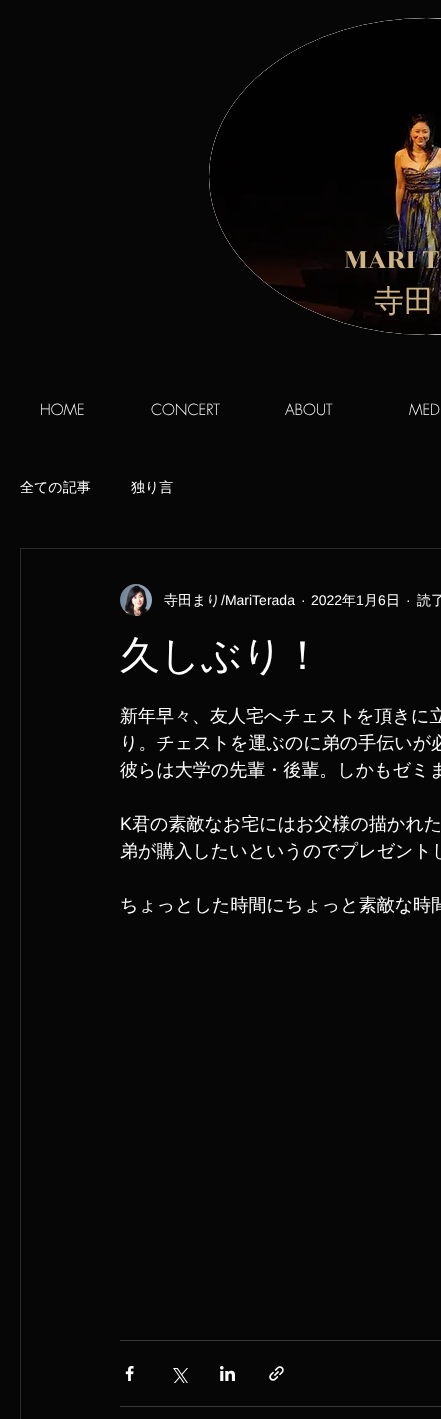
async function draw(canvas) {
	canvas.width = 441;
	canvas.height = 1419;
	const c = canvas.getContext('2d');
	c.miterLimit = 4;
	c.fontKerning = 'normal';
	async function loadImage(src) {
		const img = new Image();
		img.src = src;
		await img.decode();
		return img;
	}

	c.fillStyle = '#070606';
	c.fillRect(0, 0, 441, 1419);
	c.fillStyle = '#fff';
	c.beginPath();
	c.ellipse(426.5, 176.5, 217.5, 158.5, 0, 0, 2 * Math.PI);
	c.fill();
	c.drawImage(await loadImage('img1.png'), 209, 18, 232, 317);
	c.font = '30px Rozha One';
	c.fillStyle = '#cfb486';
	c.fillText('MARI T', 344, 268);
	c.wordSpacing = '-2px';
	c.font = '500 30px WenQuanYi Zen Hei';
	c.fillText('寺田', 374, 311);
	c.wordSpacing = '0px';
	c.font = '300 15px futura';
	c.fillStyle = '#fff';
	for (const [text, x, y] of [
		['HOME', 40, 415],
		['CONCERT', 151, 415],
		['ABOUT', 285, 415],
		['MED', 409, 415],
	]) {
		c.fillText(text, x, y);
	}
	c.font = '500 14px WenQuanYi Zen Hei';
	c.fillText('全ての記事', 20, 492);
	c.fillText('独り言', 131, 492);
	c.strokeStyle = '#2d2929';
	c.strokeRect(20.5, 548.5, 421, 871);
	c.drawImage(await loadImage('img2.png'), 120, 584, 32, 32);
	c.fillText('寺田まり', 164, 605);
	c.font = '14px Liberation Sans';
	for (const [text, x, y] of [
		['/MariTerada', 221, 605],
		['·', 301, 605],
		['2022', 311, 605],
	]) {
		c.fillText(text, x, y);
	}
	c.font = '500 14px WenQuanYi Zen Hei';
	c.fillText('年', 342, 605);
	c.font = '14px Liberation Sans';
	c.fillText('1', 356, 605);
	c.font = '500 14px WenQuanYi Zen Hei';
	c.fillText('月', 364, 605);
	c.font = '14px Liberation Sans';
	c.fillText('6', 378, 605);
	c.font = '500 14px WenQuanYi Zen Hei';
	c.fillText('日', 386, 605);
	c.font = '14px Liberation Sans';
	c.fillText('·', 406, 605);
	c.font = '500 14px WenQuanYi Zen Hei';
	c.fillText('読了', 417, 605);
	c.font = '500 40px WenQuanYi Zen Hei';
	c.fillText('久しぶり！', 120, 669);
	c.font = '500 18px WenQuanYi Zen Hei';
	for (const [text, x, y] of [
		['新年早々、友人宅へチェストを頂きに立', 120, 722],
		['り。チェストを運ぶのに弟の手伝いが必', 120, 749],
		['彼らは大学の先輩・後輩。しかもゼミま', 120, 776],
	]) {
		c.fillText(text, x, y);
	}
	c.font = '18px Liberation Sans';
	c.fillText('K', 120, 830);
	c.font = '500 18px WenQuanYi Zen Hei';
	for (const [text, x, y] of [
		['君の素敵なお宅にはお父様の描かれた', 132, 830],
		['弟が購入したいというのでプレゼントし', 120, 857],
		['ちょっとした時間にちょっと素敵な時間', 120, 911],
	]) {
		c.fillText(text, x, y);
	}
	c.fillStyle = '#393838';
	c.fillRect(120, 1340, 321, 1);
	c.drawImage(await loadImage('img3.png'), 125, 1366, 9, 15);
	c.drawImage(await loadImage('img4.png'), 173, 1368, 15, 15);
	c.drawImage(await loadImage('img5.png'), 220, 1366, 15, 15);
	c.drawImage(await loadImage('img6.png'), 269, 1366, 15, 15);
	c.fillRect(120, 1406, 321, 1);
}

draw(document.querySelector('canvas'));
